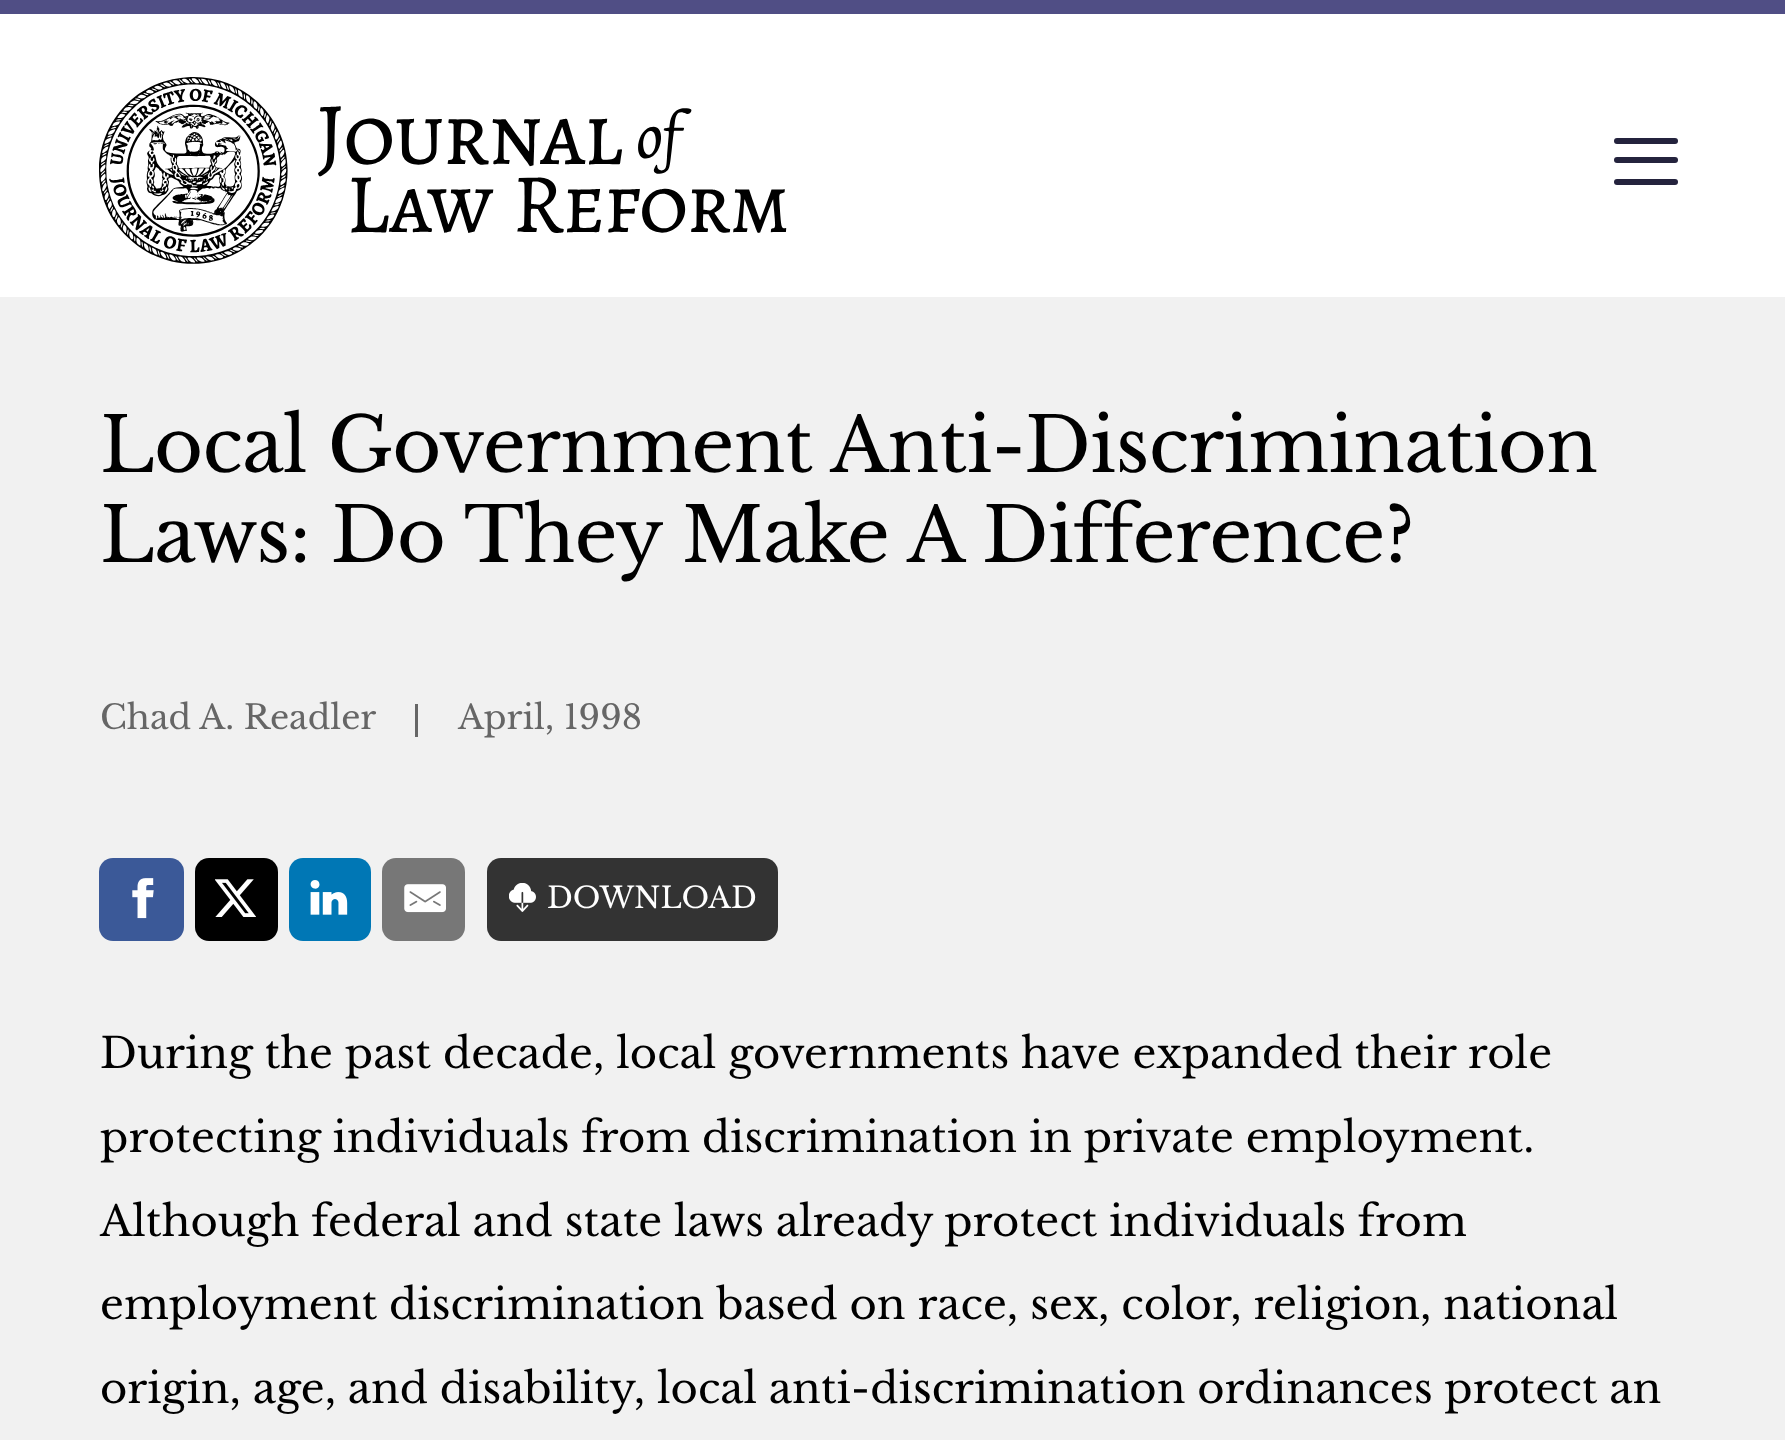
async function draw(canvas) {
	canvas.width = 1785;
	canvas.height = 1440;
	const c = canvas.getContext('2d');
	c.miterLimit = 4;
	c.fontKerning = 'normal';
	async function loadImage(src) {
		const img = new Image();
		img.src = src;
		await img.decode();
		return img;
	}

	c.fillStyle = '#f1f1f1';
	c.fillRect(0, 0, 1785, 1440);
	c.fillStyle = '#fff';
	c.fillRect(0, 14, 1785, 283);
	c.fillStyle = '#504e85';
	c.fillRect(0, 0, 1785, 14);
	c.drawImage(await loadImage('img1.png'), 99, 77, 688, 187);
	c.fillStyle = '#24233d';
	c.beginPath();
	c.roundRect(1614, 157, 64, 6, 3);
	c.fill();
	c.beginPath();
	c.roundRect(1614, 138, 64, 6, 3);
	c.fill();
	c.beginPath();
	c.roundRect(1614, 179, 64, 6, 3);
	c.fill();
	c.letterSpacing = '-0.75px';
	c.font = '75.25px Libre Baskerville';
	c.fillStyle = '#000';
	c.fillText('Local Government Anti-Discrimination', 100, 472);
	c.fillText('Laws: Do They Make A Difference?', 100, 562);
	c.letterSpacing = '0px';
	c.font = '33.5px Libre Baskerville';
	c.fillStyle = '#666';
	c.fillText('Chad A. Readler', 100, 729);
	c.fillRect(415, 704, 3, 33);
	c.fillText('April, 1998', 458, 729);
	c.fillStyle = '#3b5998';
	c.beginPath();
	c.roundRect(99, 858, 85, 83, 14);
	c.fill();
	c.drawImage(await loadImage('img2.png'), 132, 878, 22, 41);
	c.fillStyle = '#000';
	c.beginPath();
	c.roundRect(195, 858, 83, 83, 14);
	c.fill();
	c.drawImage(await loadImage('img3.png'), 215, 879, 41, 38);
	c.fillStyle = '#0077b5';
	c.beginPath();
	c.roundRect(289, 858, 82, 83, 14);
	c.fill();
	c.drawImage(await loadImage('img4.png'), 310, 880, 38, 35);
	c.fillStyle = '#777';
	c.beginPath();
	c.roundRect(382, 858, 83, 83, 14);
	c.fill();
	c.drawImage(await loadImage('img5.png'), 404, 884, 42, 29);
	c.fillStyle = '#333';
	c.beginPath();
	c.roundRect(487, 858, 291, 83, 14);
	c.fill();
	c.drawImage(await loadImage('img6.png'), 509, 883, 27, 29);
	c.font = '29.25px Libre Baskerville';
	c.fillStyle = '#fff';
	c.fillText('DOWNLOAD', 547, 908);
	c.wordSpacing = '-0.1px';
	c.font = '41.8px Libre Baskerville';
	c.fillStyle = '#000';
	c.fillText('During the past decade, local governments have expanded their role', 100, 1068);
	c.wordSpacing = '-0.25px';
	for (const [text, x, y] of [
		['protecting individuals from discrimination in private employment.', 100, 1152],
		['Although federal and state laws already protect individuals from', 100, 1236],
		['employment discrimination based on race, sex, color, religion, national', 100, 1319],
		['origin, age, and disability, local anti-discrimination ordinances protect an', 100, 1403],
	]) {
		c.fillText(text, x, y);
	}
}

draw(document.querySelector('canvas'));
